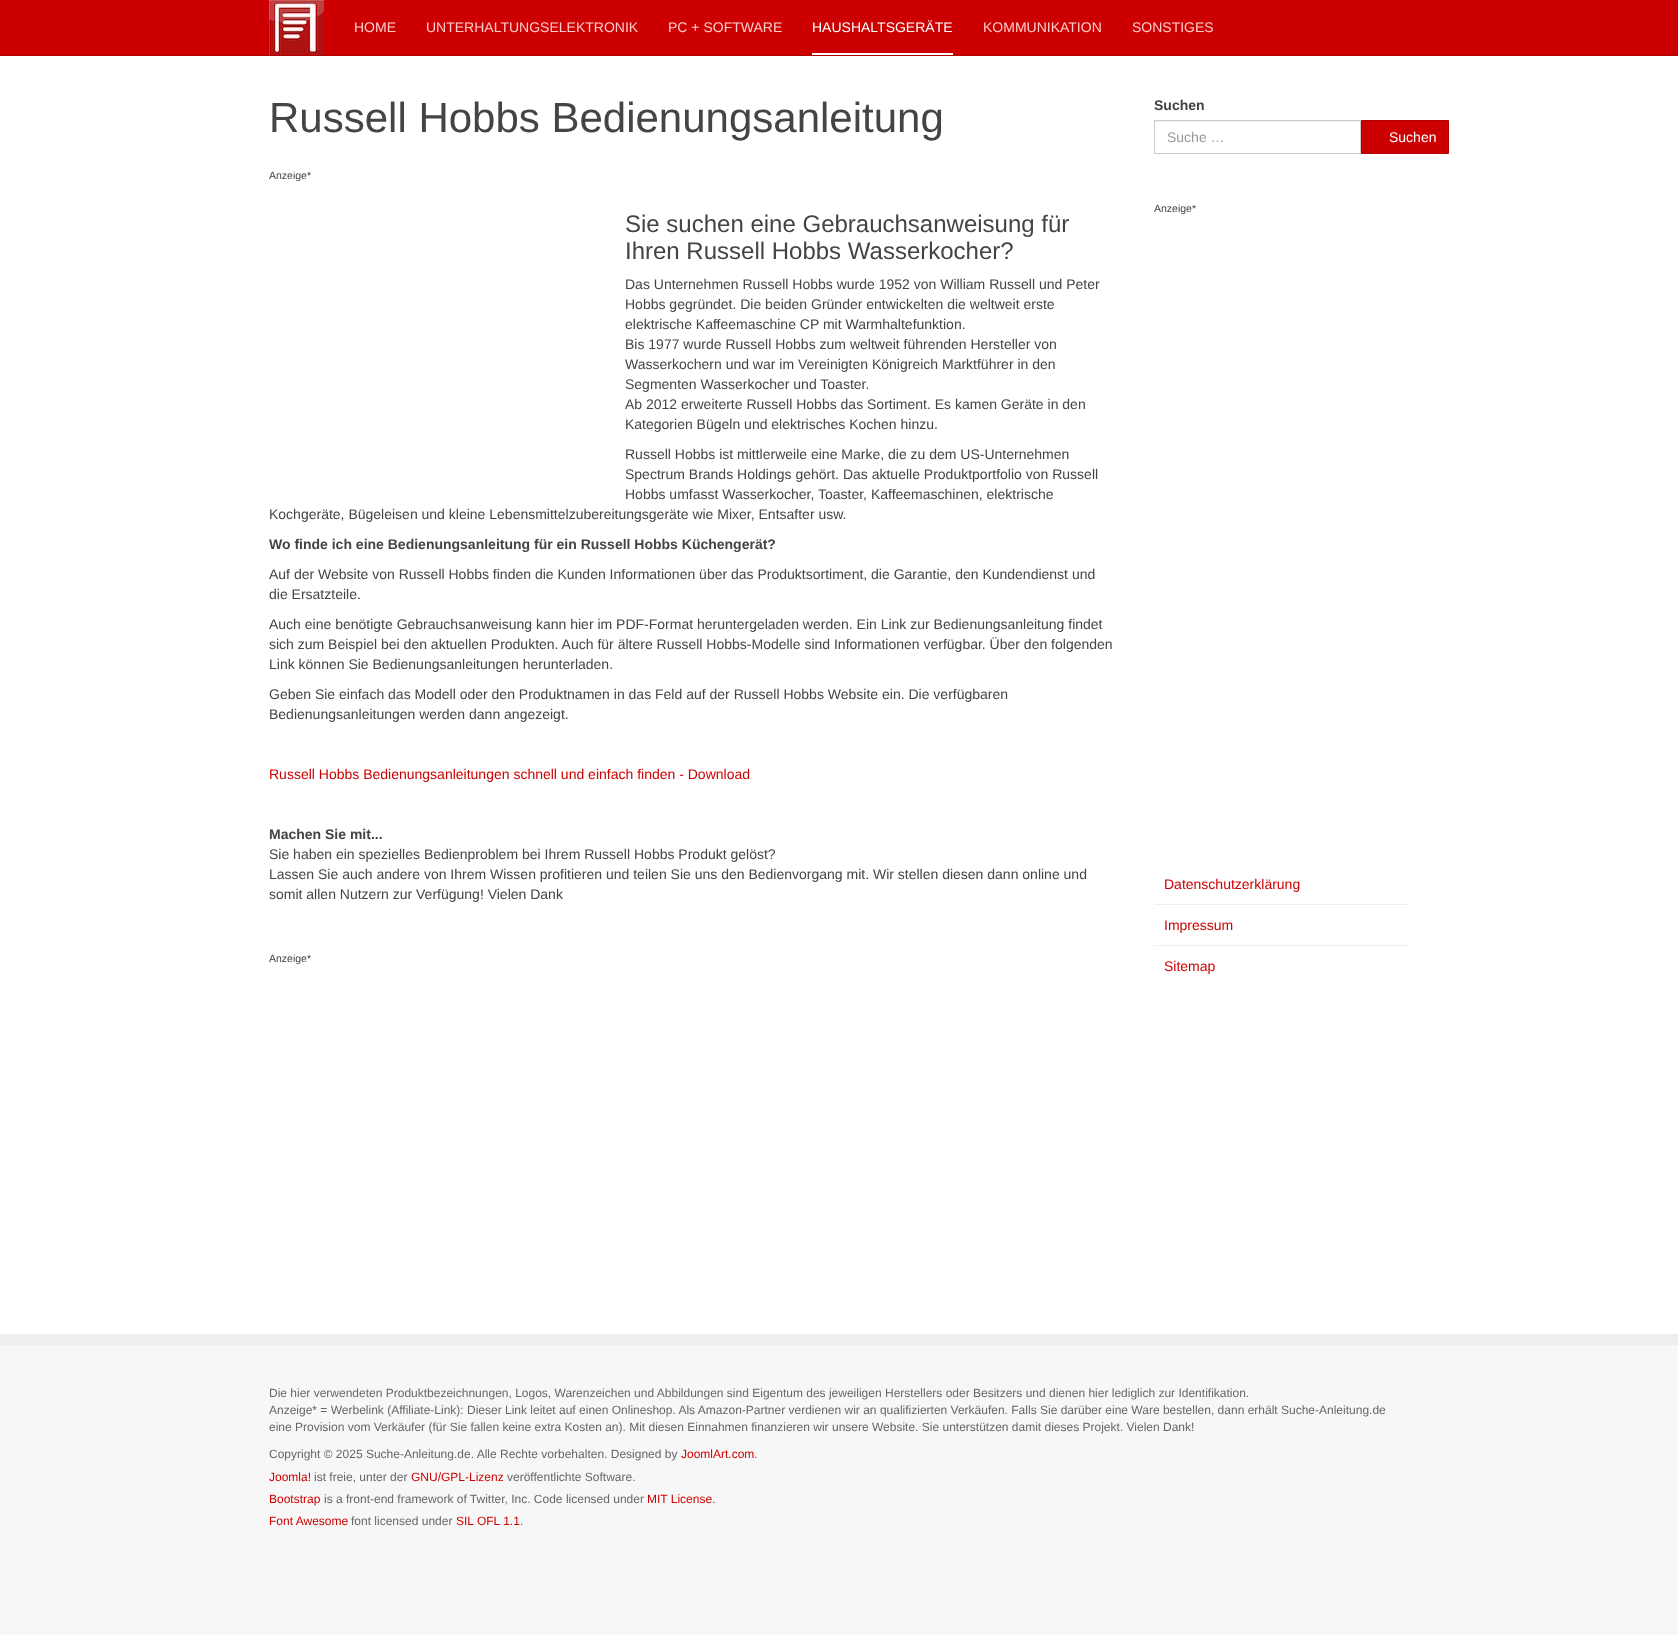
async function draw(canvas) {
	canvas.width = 1678;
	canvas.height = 1647;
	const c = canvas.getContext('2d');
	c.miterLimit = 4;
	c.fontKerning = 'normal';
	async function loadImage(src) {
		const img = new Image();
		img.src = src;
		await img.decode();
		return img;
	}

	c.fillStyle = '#fff';
	c.fillRect(0, 0, 1678, 1647);
	c.fillStyle = '#c00';
	c.fillRect(0, 0, 1678, 55);
	c.fillStyle = '#b30000';
	c.fillRect(0, 55, 1678, 1);
	c.drawImage(await loadImage('img1.png'), 269, 0, 55, 55);
	c.font = '14px Liberation Sans';
	c.fillStyle = '#fcc';
	for (const [text, x, y] of [
		['HOME', 354, 32],
		['UNTERHALTUNGSELEKTRONIK', 426, 32],
		['PC + SOFTWARE', 668, 32],
	]) {
		c.fillText(text, x, y);
	}
	c.fillStyle = '#fff';
	c.fillRect(812, 53, 141, 2);
	c.fillText('HAUSHALTSGERÄTE', 812, 32);
	c.fillStyle = '#fcc';
	c.fillText('KOMMUNIKATION', 983, 32);
	c.fillText('SONSTIGES', 1132, 32);
	c.font = '42px Liberation Sans';
	c.fillStyle = '#444';
	c.fillText('Russell Hobbs Bedienungsanleitung', 269, 132);
	c.font = '10.5px Liberation Sans';
	c.fillText('Anzeige*', 269, 179);
	c.font = '24px Liberation Sans';
	c.fillText('Sie suchen eine Gebrauchsanweisung für', 625, 232);
	c.fillText('Ihren Russell Hobbs Wasserkocher?', 625, 259);
	c.font = '14px Liberation Sans';
	for (const [text, x, y] of [
		['Das Unternehmen Russell Hobbs wurde 1952 von William Russell und Peter', 625, 289],
		['Hobbs gegründet. Die beiden Gründer entwickelten die weltweit erste', 625, 309],
		['elektrische Kaffeemaschine CP mit Warmhaltefunktion.', 625, 329],
		['Bis 1977 wurde Russell Hobbs zum weltweit führenden Hersteller von', 625, 349],
		['Wasserkochern und war im Vereinigten Königreich Marktführer in den', 625, 369],
		['Segmenten Wasserkocher und Toaster.', 625, 389],
		['Ab 2012 erweiterte Russell Hobbs das Sortiment. Es kamen Geräte in den', 625, 409],
		['Kategorien Bügeln und elektrisches Kochen hinzu.', 625, 429],
		['Russell Hobbs ist mittlerweile eine Marke, die zu dem US-Unternehmen', 625, 459],
		['Spectrum Brands Holdings gehört. Das aktuelle Produktportfolio von Russell', 625, 479],
		['Hobbs umfasst Wasserkocher, Toaster, Kaffeemaschinen, elektrische', 625, 499],
		['Kochgeräte, Bügeleisen und kleine Lebensmittelzubereitungsgeräte wie Mixer, Entsafter usw.', 269, 519],
	]) {
		c.fillText(text, x, y);
	}
	c.font = 'bold 14px Liberation Sans';
	c.fillText('Wo finde ich eine Bedienungsanleitung für ein Russell Hobbs Küchengerät?', 269, 549);
	c.font = '14px Liberation Sans';
	for (const [text, x, y] of [
		['Auf der Website von Russell Hobbs finden die Kunden Informationen über das Produktsortiment, die Garantie, den Kundendienst und', 269, 579],
		['die Ersatzteile.', 269, 599],
		['Auch eine benötigte Gebrauchsanweisung kann hier im PDF-Format heruntergeladen werden. Ein Link zur Bedienungsanleitung findet', 269, 629],
		['sich zum Beispiel bei den aktuellen Produkten. Auch für ältere Russell Hobbs-Modelle sind Informationen verfügbar. Über den folgenden', 269, 649],
		['Link können Sie Bedienungsanleitungen herunterladen.', 269, 669],
		['Geben Sie einfach das Modell oder den Produktnamen in das Feld auf der Russell Hobbs Website ein. Die verfügbaren', 269, 699],
		['Bedienungsanleitungen werden dann angezeigt.', 269, 719],
	]) {
		c.fillText(text, x, y);
	}
	c.fillStyle = '#c00';
	c.fillText('Russell Hobbs Bedienungsanleitungen schnell und einfach finden - Download', 269, 779);
	c.font = 'bold 14px Liberation Sans';
	c.fillStyle = '#444';
	c.fillText('Machen Sie mit...', 269, 839);
	c.font = '14px Liberation Sans';
	for (const [text, x, y] of [
		['Sie haben ein spezielles Bedienproblem bei Ihrem Russell Hobbs Produkt gelöst?', 269, 859],
		['Lassen Sie auch andere von Ihrem Wissen profitieren und teilen Sie uns den Bedienvorgang mit. Wir stellen diesen dann online und', 269, 879],
		['somit allen Nutzern zur Verfügung! Vielen Dank', 269, 899],
	]) {
		c.fillText(text, x, y);
	}
	c.font = '10.5px Liberation Sans';
	c.fillText('Anzeige*', 269, 962);
	c.font = 'bold 14px Liberation Sans';
	c.fillText('Suchen', 1154, 110);
	c.fillStyle = '#ececec';
	c.fillRect(1155, 121, 205, 1);
	c.strokeStyle = '#ccc';
	c.strokeRect(1154.5, 120.5, 206, 33);
	c.font = '14px Liberation Sans';
	c.fillStyle = '#999';
	c.fillText('Suche …', 1167, 142);
	c.fillStyle = '#c00';
	c.beginPath();
	c.rect(1361.5, 120.5, 87, 33);
	c.fill();
	c.strokeStyle = '#b30000';
	c.stroke();
	c.fillStyle = '#fff';
	c.fillText('Suchen', 1389, 142);
	c.font = '10.5px Liberation Sans';
	c.fillStyle = '#444';
	c.fillText('Anzeige*', 1154, 212);
	c.font = '14px Liberation Sans';
	c.fillStyle = '#c00';
	c.fillText('Datenschutzerklärung', 1164, 889);
	c.fillStyle = '#eee';
	c.fillRect(1154, 904, 255, 1);
	c.fillStyle = '#c00';
	c.fillText('Impressum', 1164, 930);
	c.fillStyle = '#eee';
	c.fillRect(1154, 945, 255, 1);
	c.fillStyle = '#c00';
	c.fillText('Sitemap', 1164, 971);
	c.fillStyle = '#eee';
	c.fillRect(0, 1334, 1678, 11);
	c.fillStyle = '#f7f7f7';
	c.fillRect(0, 1345, 1678, 290);
	c.font = '12px Liberation Sans';
	c.fillStyle = '#666';
	for (const [text, x, y] of [
		['Die hier verwendeten Produktbezeichnungen, Logos, Warenzeichen und Abbildungen sind Eigentum des jeweiligen Herstellers oder Besitzers und dienen hier lediglich zur Identifikation.', 269, 1397],
		['Anzeige* = Werbelink (Affiliate-Link): Dieser Link leitet auf einen Onlineshop. Als Amazon-Partner verdienen wir an qualifizierten Verkäufen. Falls Sie darüber eine Ware bestellen, dann erhält Suche-Anleitung.de', 269, 1414],
		['eine Provision vom Verkäufer (für Sie fallen keine extra Kosten an). Mit diesen Einnahmen finanzieren wir unsere Website. Sie unterstützen damit dieses Projekt. Vielen Dank!', 269, 1431],
		['Copyright © 2025 Suche-Anleitung.de. Alle Rechte vorbehalten. Designed by', 269, 1458],
	]) {
		c.fillText(text, x, y);
	}
	c.fillStyle = '#c00';
	c.fillText('JoomlArt.com', 681, 1458);
	c.fillStyle = '#666';
	c.fillText('.', 754, 1458);
	c.fillStyle = '#c00';
	c.fillText('Joomla!', 269, 1481);
	c.fillStyle = '#666';
	c.fillText('ist freie, unter der', 314, 1481);
	c.fillStyle = '#c00';
	c.fillText('GNU/GPL-Lizenz', 411, 1481);
	c.fillStyle = '#666';
	c.fillText('veröffentlichte Software.', 507, 1481);
	c.fillStyle = '#c00';
	c.fillText('Bootstrap', 269, 1503);
	c.fillStyle = '#666';
	c.fillText('is a front-end framework of Twitter, Inc. Code licensed under', 324, 1503);
	c.fillStyle = '#c00';
	c.fillText('MIT License.', 647, 1503);
	c.fillText('Font Awesome', 269, 1525);
	c.fillStyle = '#666';
	c.fillText('font licensed under', 351, 1525);
	c.fillStyle = '#c00';
	c.fillText('SIL OFL 1.1', 456, 1525);
	c.fillStyle = '#666';
	c.fillText('.', 520, 1525);
}

draw(document.querySelector('canvas'));
